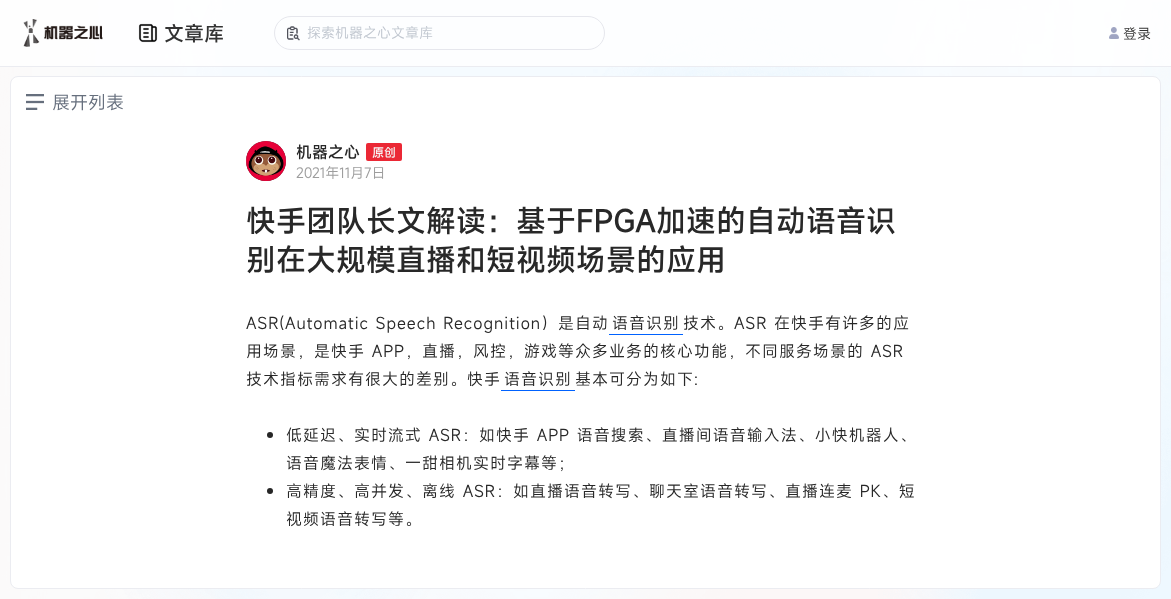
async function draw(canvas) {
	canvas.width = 1171;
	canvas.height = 599;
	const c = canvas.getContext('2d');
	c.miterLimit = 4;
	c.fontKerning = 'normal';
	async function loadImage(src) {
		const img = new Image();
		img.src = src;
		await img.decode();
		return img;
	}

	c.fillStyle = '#fff';
	c.fillRect(0, 0, 1171, 599);
	c.drawImage(await loadImage('img1.png'), 0, 0, 1171, 599);
	c.fillStyle = '#ebecf1';
	c.fillRect(0, 66, 1171, 1);
	c.fillStyle = '#ffffffcc';
	c.fillRect(0, 0, 1171, 66);
	c.drawImage(await loadImage('img2.png'), 23, 19, 80, 28);
	c.drawImage(await loadImage('img3.png'), 138, 23, 20, 20);
	c.font = '500 20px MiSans';
	c.fillStyle = '#333';
	c.fillText('文章库', 164, 41);
	c.beginPath();
	c.roundRect(274.5, 16.5, 330, 33, 16.5);
	c.strokeStyle = '#e6e7ed';
	c.stroke();
	c.drawImage(await loadImage('img4.png'), 287, 26, 13, 15);
	c.font = '14px MiSans';
	c.fillStyle = '#c1c7d0';
	c.fillText('探索机器之心文章库', 307, 38);
	c.drawImage(await loadImage('img5.png'), 1109, 27, 10, 12);
	c.fillStyle = '#333';
	c.fillText('登录', 1123, 39);
	c.fillStyle = '#fff';
	c.beginPath();
	c.roundRect(10.5, 76.5, 1150, 512, 7.5);
	c.fill();
	c.strokeStyle = '#ebecf1';
	c.stroke();
	c.drawImage(await loadImage('img6.png'), 26, 94, 18, 16);
	c.font = '18px MiSans';
	c.fillStyle = '#666f7d';
	c.fillText('展开列表', 52, 109);
	c.fillStyle = '#333';
	c.beginPath();
	c.arc(266, 161, 20, 0, 2 * Math.PI);
	c.fill();
	c.drawImage(await loadImage('img7.png'), 246, 141, 40, 40);
	c.font = '500 16px MiSans';
	c.fillStyle = '#282828';
	c.fillText('机器之心', 296, 158);
	c.fillStyle = '#eb2835';
	c.beginPath();
	c.roundRect(366, 143, 36, 18, 2);
	c.fill();
	c.font = '500 12px MiSans';
	c.fillStyle = '#f6f6f6';
	c.fillText('原创', 372, 157);
	c.font = '14px MiSans';
	c.fillStyle = '#9d9d9d';
	c.fillText('2021年11月7日', 296, 178);
	c.font = '500 30px MiSans';
	c.fillStyle = '#282828';
	c.fillText('快手团队长文解读：基于FPGA加速的自动语音识', 246, 232);
	c.fillText('别在大规模直播和短视频场景的应用', 246, 271);
	c.letterSpacing = '1px';
	c.font = '16px MiSans';
	c.fillText('ASR(Automatic Speech Recognition）是自动', 246, 329);
	c.fillText('语音识别', 612, 329);
	c.fillStyle = '#0062ff';
	c.fillRect(609, 334, 74, 1);
	c.fillStyle = '#282828';
	for (const [text, x, y] of [
		['技术。ASR 在快手有许多的应', 683, 329],
		['用场景，是快手 APP，直播，风控，游戏等众多业务的核心功能，不同服务场景的 ASR', 246, 357],
		['技术指标需求有很大的差别。快手', 246, 385],
		['语音识别', 504, 385],
	]) {
		c.fillText(text, x, y);
	}
	c.fillStyle = '#0062ff';
	c.fillRect(501, 390, 74, 1);
	c.fillStyle = '#282828';
	c.fillText('基本可分为如下:', 575, 385);
	c.fillStyle = '#262626';
	c.beginPath();
	c.arc(270, 435, 3, 0, 2 * Math.PI);
	c.fill();
	c.fillStyle = '#282828';
	c.fillText('低延迟、实时流式 ASR：如快手 APP 语音搜索、直播间语音输入法、小快机器人、', 286, 441);
	c.fillText('语音魔法表情、一甜相机实时字幕等；', 286, 469);
	c.fillStyle = '#262626';
	c.beginPath();
	c.arc(270, 491, 3, 0, 2 * Math.PI);
	c.fill();
	c.fillStyle = '#282828';
	c.fillText('高精度、高并发、离线 ASR：如直播语音转写、聊天室语音转写、直播连麦 PK、短', 286, 497);
	c.fillText('视频语音转写等。', 286, 525);
}

draw(document.querySelector('canvas'));
